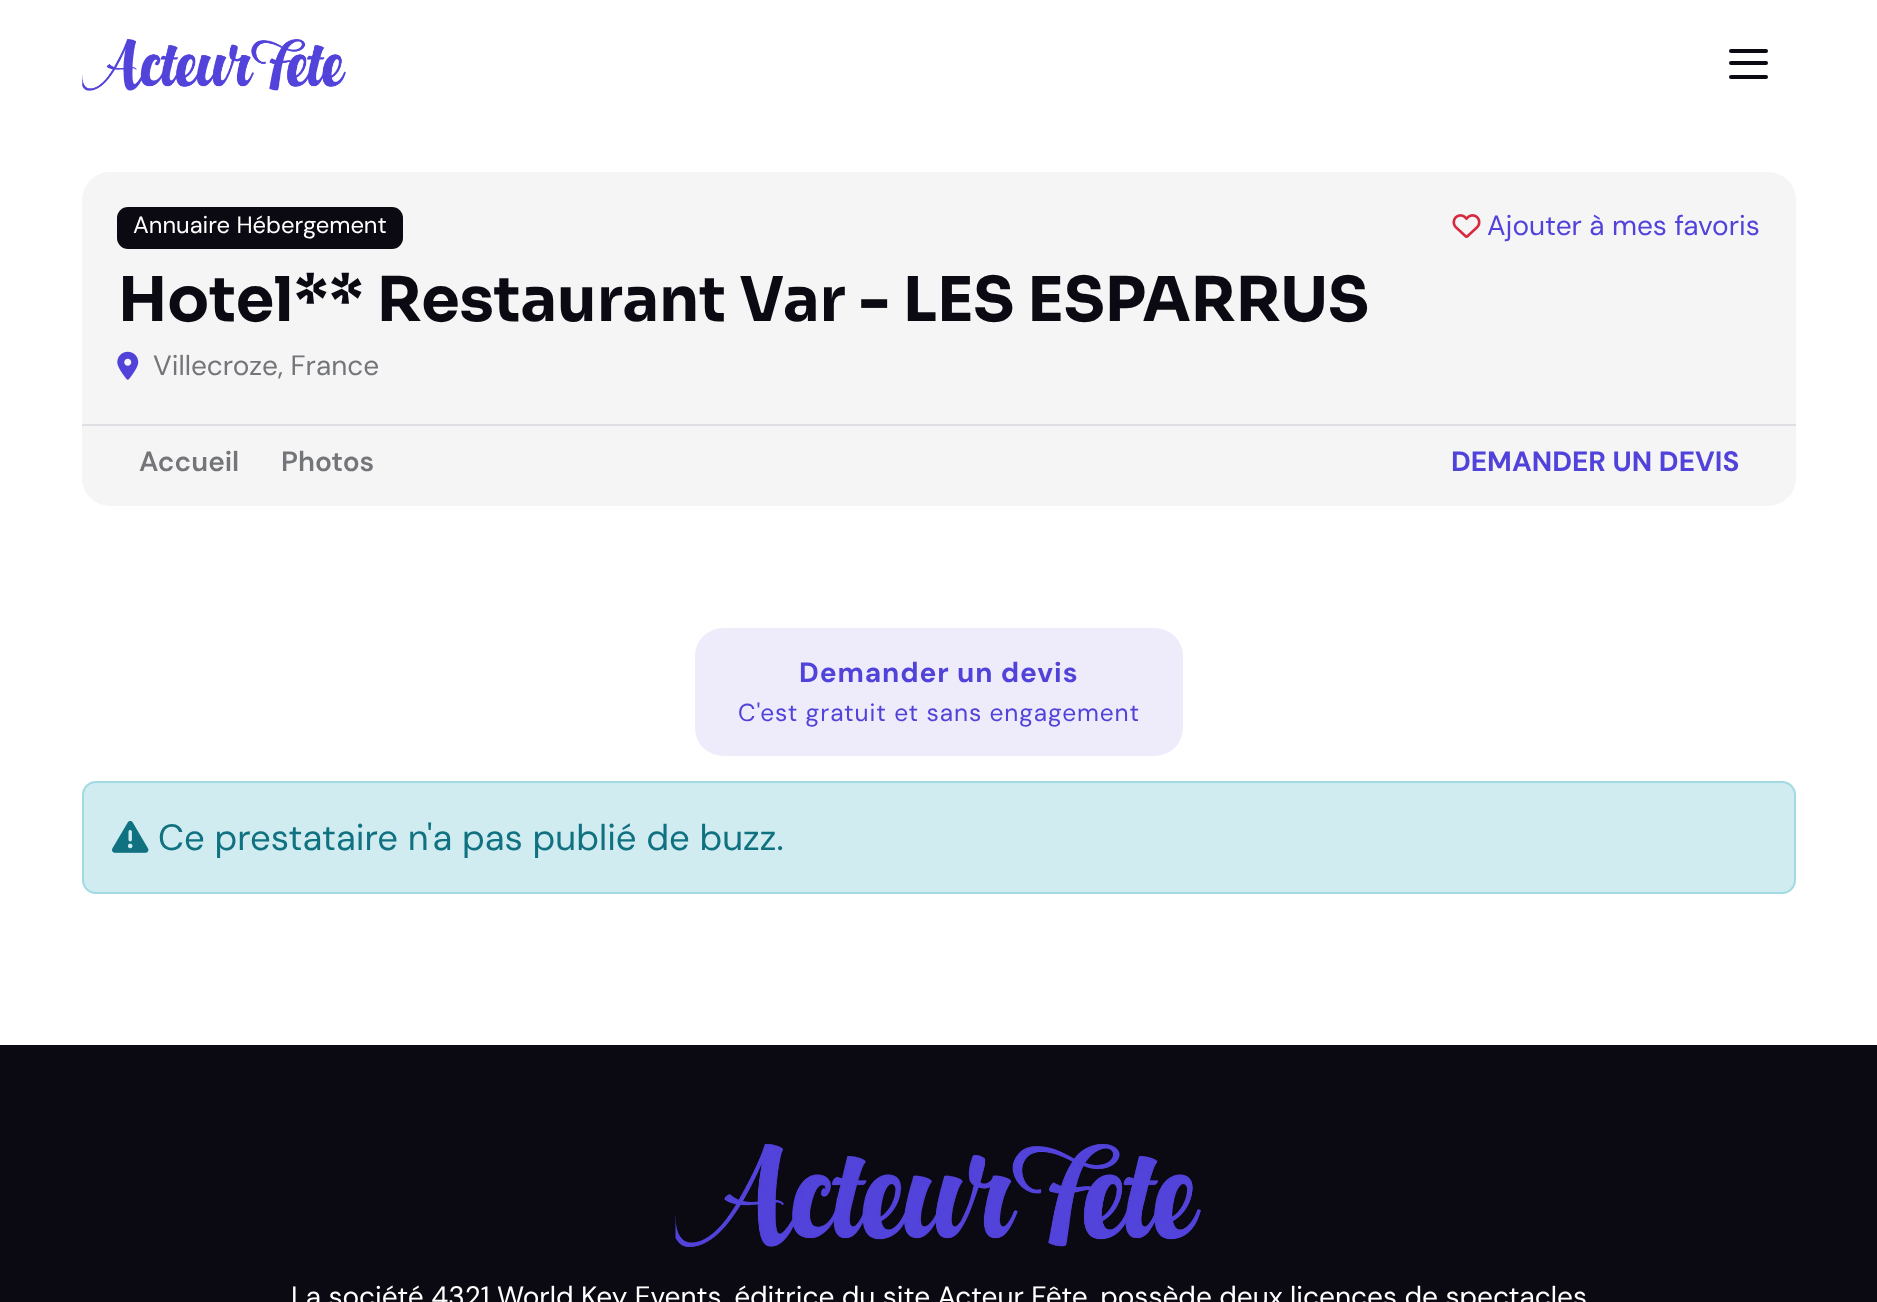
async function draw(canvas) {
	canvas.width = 1877;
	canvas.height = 1302;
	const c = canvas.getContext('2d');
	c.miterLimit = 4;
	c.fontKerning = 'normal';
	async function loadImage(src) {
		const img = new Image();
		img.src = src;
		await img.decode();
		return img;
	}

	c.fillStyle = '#fff';
	c.fillRect(0, 0, 1877, 1302);
	c.drawImage(await loadImage('img1.png'), 82, 39, 264, 52);
	c.fillStyle = '#0b0a12';
	c.beginPath();
	c.roundRect(1729, 49, 39, 4, 2);
	c.fill();
	c.beginPath();
	c.roundRect(1729, 61, 39, 4, 2);
	c.fill();
	c.beginPath();
	c.roundRect(1729, 75, 39, 4, 2);
	c.fill();
	c.fillStyle = '#f5f5f6';
	c.beginPath();
	c.roundRect(82, 172, 1714, 334, 28);
	c.fill();
	c.fillStyle = '#0b0a12';
	c.beginPath();
	c.roundRect(117, 207, 286, 42, 11);
	c.fill();
	c.font = '23.75px DM Sans';
	c.fillStyle = '#fff';
	c.fillText('Annuaire Hébergement', 133, 233);
	c.drawImage(await loadImage('img2.png'), 1452, 214, 29, 24);
	c.font = '28px DM Sans';
	c.fillStyle = '#5143d9';
	c.fillText('Ajouter à mes favoris', 1487, 235);
	c.font = 'bold 61.6px Sora';
	c.fillStyle = '#0b0a12';
	c.fillText('Hotel** Restaurant Var - LES ESPARRUS', 118, 321);
	c.drawImage(await loadImage('img3.png'), 117, 351, 22, 29);
	c.font = '28px DM Sans';
	c.fillStyle = '#747579';
	c.fillText('Villecroze, France', 153, 375);
	c.fillStyle = '#dfdfe3';
	c.fillRect(82, 424, 1714, 2);
	c.font = '600 28px DM Sans';
	c.fillStyle = '#747579';
	c.fillText('Accueil', 139, 471);
	c.fillText('Photos', 281, 471);
	c.font = 'bold 28px DM Sans';
	c.fillStyle = '#5143d9';
	c.fillText('DEMANDER UN DEVIS', 1451, 471);
	c.fillStyle = '#eeecfb';
	c.beginPath();
	c.roundRect(695, 628, 488, 128, 28);
	c.fill();
	c.letterSpacing = '0.9px';
	c.fillStyle = '#5143d9';
	c.fillText('Demander un devis', 799, 682);
	c.font = '24.5px DM Sans';
	c.fillText('C\'est gratuit et sans engagement', 738, 721);
	c.fillStyle = '#d1ecf1';
	c.beginPath();
	c.roundRect(83, 782, 1712, 111, 13);
	c.fill();
	c.strokeStyle = '#a2dae3';
	c.lineWidth = 2;
	c.stroke();
	c.drawImage(await loadImage('img4.png'), 112, 820, 37, 33);
	c.letterSpacing = '0px';
	c.font = '36.4px DM Sans';
	c.fillStyle = '#107181';
	c.fillText('Ce prestataire n\'a pas publié de buzz.', 158, 850);
	c.fillStyle = '#0b0a12';
	c.fillRect(0, 1045, 1877, 257);
	c.drawImage(await loadImage('img5.png'), 675, 1143, 527, 104);
	c.font = '28px DM Sans';
	c.fillStyle = '#fff';
	c.fillText('La société 4321 World Key Events, éditrice du site Acteur Fête, possède deux licences de spectacles', 291, 1306);
}

draw(document.querySelector('canvas'));
